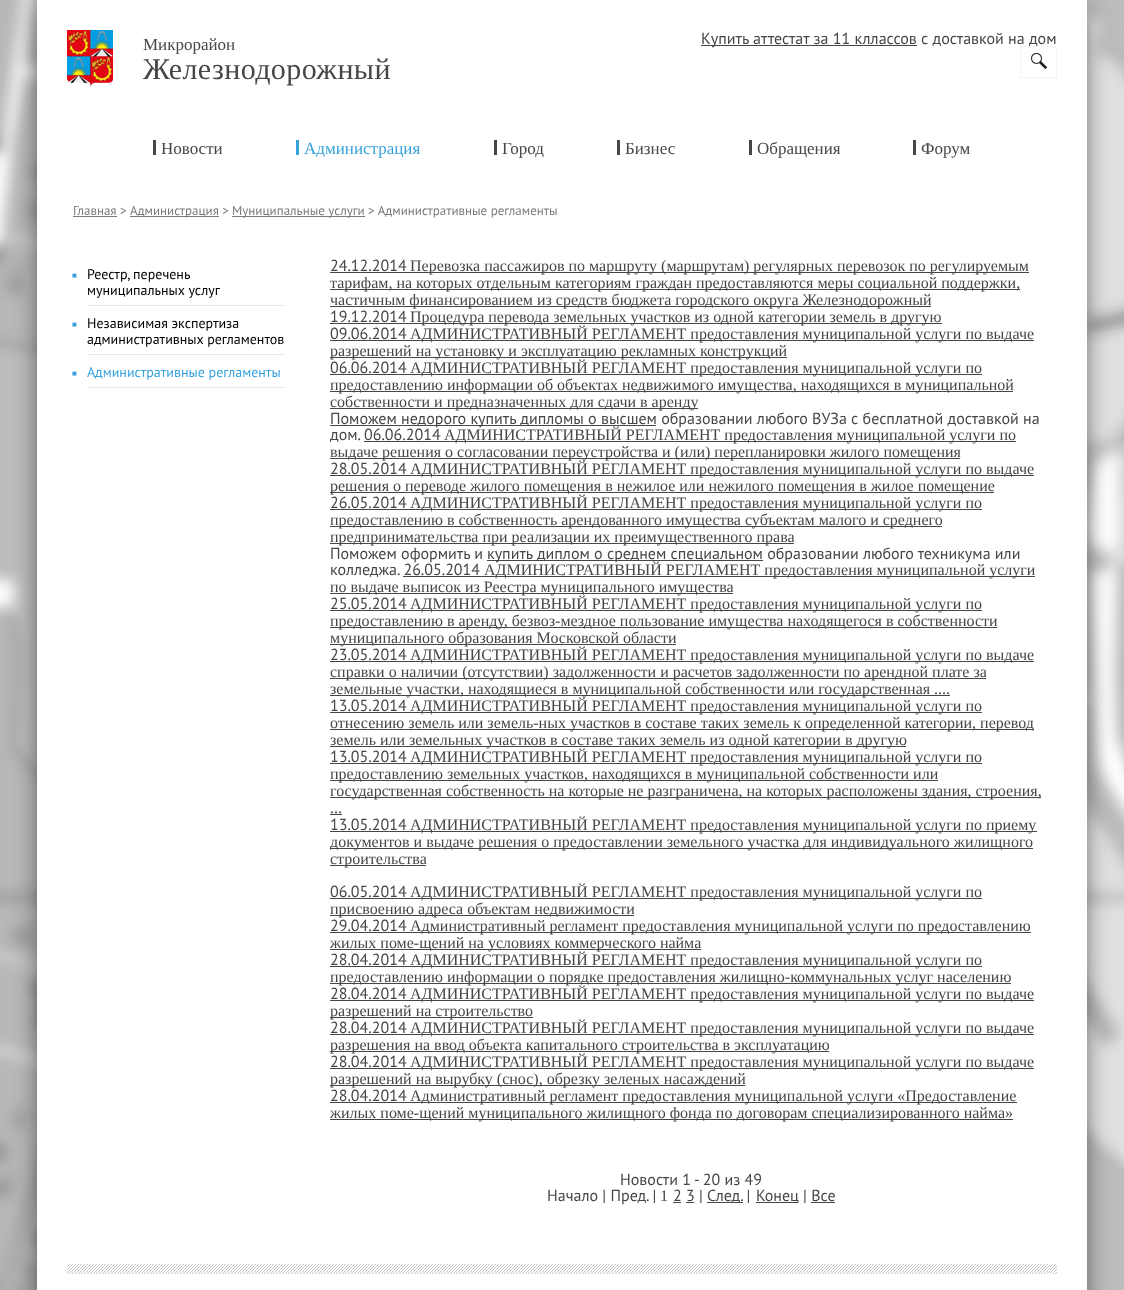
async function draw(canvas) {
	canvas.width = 1124;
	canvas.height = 1290;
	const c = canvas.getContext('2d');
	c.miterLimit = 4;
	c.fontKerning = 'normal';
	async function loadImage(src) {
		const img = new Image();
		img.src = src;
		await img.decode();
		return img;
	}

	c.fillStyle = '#fff';
	c.fillRect(0, 0, 1124, 1290);
	c.drawImage(await loadImage('img1.png'), 0, 0, 1124, 1290);
	c.fillStyle = '#000';
	c.filter = 'blur(15px)';
	c.beginPath();
	c.rect(47, 10, 1030, 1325);
	c.fill();
	c.filter = 'none';
	c.fillStyle = '#fff';
	c.fillRect(37, 0, 1050, 1290);
	c.drawImage(await loadImage('img2.png'), 67, 30, 46, 57);
	c.font = '17px Liberation Serif';
	c.fillStyle = '#464646';
	c.fillText('Микрорайон', 143, 50);
	c.letterSpacing = '0.4px';
	c.font = '30px Liberation Serif';
	c.fillText('Железнодорожный', 143, 79);
	c.fillRect(701, 45, 216, 1);
	c.letterSpacing = '0px';
	c.font = '16px PT Sans';
	c.fillText('Купить аттестат за 11 кллассов с доставкой на дом', 701, 44);
	c.strokeStyle = '#f3f3f3';
	c.strokeRect(1020.5, 46.5, 36, 31);
	c.drawImage(await loadImage('img3.png'), 1031, 53, 16, 16);
	c.drawImage(await loadImage('img4.png'), 1031, 53, 16, 16);
	c.fillRect(153, 140, 3, 15);
	c.font = '17px Liberation Serif';
	c.fillText('Новости', 161, 154);
	c.fillStyle = '#36a2dd';
	c.fillRect(296, 140, 3, 15);
	c.fillText('Администрация', 304, 154);
	c.fillStyle = '#464646';
	c.fillRect(494, 140, 3, 15);
	c.fillText('Город', 502, 154);
	c.fillRect(617, 140, 3, 15);
	c.fillText('Бизнес', 625, 154);
	c.fillRect(749, 140, 3, 15);
	c.fillText('Обращения', 757, 154);
	c.fillRect(913, 140, 3, 15);
	c.fillText('Форум', 921, 154);
	c.font = '13px PT Sans';
	c.fillStyle = '#7a7a7a';
	c.fillText('Главная >', 73, 215);
	c.fillRect(73, 216, 44, 1);
	c.fillRect(130, 216, 89, 1);
	c.fillText('Администрация >', 130, 215);
	c.fillRect(232, 216, 133, 1);
	c.fillText('Муниципальные услуги > Административные регламенты', 232, 215);
	c.fillStyle = '#e7e8e9';
	c.fillRect(87, 305, 198, 1);
	c.font = '8px Liberation Serif';
	c.fillStyle = '#36a2dd';
	c.fillText('■', 72, 278);
	c.font = '14px PT Sans';
	c.fillStyle = '#000';
	c.fillText('Реестр, перечень', 87, 279);
	c.fillText('муниципальных услуг', 87, 295);
	c.fillStyle = '#e7e8e9';
	c.fillRect(87, 354, 198, 1);
	c.font = '8px Liberation Serif';
	c.fillStyle = '#36a2dd';
	c.fillText('■', 72, 327);
	c.font = '14px PT Sans';
	c.fillStyle = '#000';
	c.fillText('Независимая экспертиза', 87, 328);
	c.fillText('административных регламентов', 87, 344);
	c.fillStyle = '#e7e8e9';
	c.fillRect(87, 387, 198, 1);
	c.font = '8px Liberation Serif';
	c.fillStyle = '#36a2dd';
	c.fillText('■', 72, 376);
	c.font = '14px PT Sans';
	c.fillText('Административные регламенты', 87, 377);
	c.font = '16px PT Sans';
	c.fillStyle = '#464646';
	c.fillText('24.12.2014', 330, 271);
	c.fillRect(330, 272, 699, 1);
	c.font = '16px Liberation Serif';
	c.fillText('Перевозка пассажиров по маршруту (маршрутам) регулярных перевозок по регулируемым', 410, 271);
	c.fillRect(330, 289, 690, 1);
	c.fillText('тарифам, на которых отдельным категориям граждан предоставляются меры социальной поддержки,', 330, 288);
	c.fillRect(330, 306, 601, 1);
	c.fillText('частичным финансированием из средств бюджета городского округа Железнодорожный', 330, 305);
	c.font = '16px PT Sans';
	c.fillText('19.12.2014', 330, 322);
	c.fillRect(330, 323, 612, 1);
	c.font = '16px Liberation Serif';
	c.fillText('Процедура перевода земельных участков из одной категории земель в другую', 410, 322);
	c.font = '16px PT Sans';
	c.fillText('09.06.2014', 330, 339);
	c.fillRect(330, 340, 704, 1);
	c.font = '16px Liberation Serif';
	c.fillText('АДМИНИСТРАТИВНЫЙ РЕГЛАМЕНТ предоставления муниципальной услуги по выдаче', 410, 339);
	c.fillRect(330, 357, 457, 1);
	c.fillText('разрешений на установку и эксплуатацию рекламных конструкций', 330, 356);
	c.font = '16px PT Sans';
	c.fillText('06.06.2014', 330, 373);
	c.fillRect(330, 374, 652, 1);
	c.font = '16px Liberation Serif';
	c.fillText('АДМИНИСТРАТИВНЫЙ РЕГЛАМЕНТ предоставления муниципальной услуги по', 410, 373);
	c.fillRect(330, 391, 683, 1);
	c.fillText('предоставлению информации об объектах недвижимого имущества, находящихся в муниципальной', 330, 390);
	c.fillRect(330, 408, 368, 1);
	c.fillText('собственности и предназначенных для сдачи в аренду', 330, 407);
	c.fillRect(330, 425, 326, 1);
	c.font = '16px PT Sans';
	c.fillText('Поможем недорого купить дипломы о высшем образовании любого ВУЗа с бесплатной доставкой на', 330, 424);
	c.fillText('дом. 06.06.2014', 330, 440);
	c.fillRect(364, 441, 652, 1);
	c.font = '16px Liberation Serif';
	c.fillText('АДМИНИСТРАТИВНЫЙ РЕГЛАМЕНТ предоставления муниципальной услуги по', 444, 440);
	c.fillRect(330, 458, 630, 1);
	c.fillText('выдаче решения о согласовании переустройства и (или) перепланировки жилого помещения', 330, 457);
	c.font = '16px PT Sans';
	c.fillText('28.05.2014', 330, 474);
	c.fillRect(330, 475, 704, 1);
	c.font = '16px Liberation Serif';
	c.fillText('АДМИНИСТРАТИВНЫЙ РЕГЛАМЕНТ предоставления муниципальной услуги по выдаче', 410, 474);
	c.fillRect(330, 492, 664, 1);
	c.fillText('решения о переводе жилого помещения в нежилое или нежилого помещения в жилое помещение', 330, 491);
	c.font = '16px PT Sans';
	c.fillText('26.05.2014', 330, 508);
	c.fillRect(330, 509, 652, 1);
	c.font = '16px Liberation Serif';
	c.fillText('АДМИНИСТРАТИВНЫЙ РЕГЛАМЕНТ предоставления муниципальной услуги по', 410, 508);
	c.fillRect(330, 526, 612, 1);
	c.fillText('предоставлению в собственность арендованного имущества субъектам малого и среднего', 330, 525);
	c.fillRect(330, 543, 464, 1);
	c.fillText('предпринимательства при реализации их преимущественного права', 330, 542);
	c.font = '16px PT Sans';
	c.fillText('Поможем оформить и', 330, 559);
	c.fillRect(487, 560, 276, 1);
	c.fillText('купить диплом о среднем специальном образовании любого техникума или', 487, 559);
	c.fillText('колледжа. 26.05.2014', 330, 575);
	c.fillRect(403, 576, 632, 1);
	c.font = '16px Liberation Serif';
	c.fillText('АДМИНИСТРАТИВНЫЙ РЕГЛАМЕНТ предоставления муниципальной услуги', 484, 575);
	c.fillRect(330, 593, 403, 1);
	c.fillText('по выдаче выписок из Реестра муниципального имущества', 330, 592);
	c.font = '16px PT Sans';
	c.fillText('25.05.2014', 330, 609);
	c.fillRect(330, 610, 652, 1);
	c.font = '16px Liberation Serif';
	c.fillText('АДМИНИСТРАТИВНЫЙ РЕГЛАМЕНТ предоставления муниципальной услуги по', 410, 609);
	c.fillRect(330, 627, 667, 1);
	c.fillText('предоставлению в аренду, безвоз-мездное пользование имущества находящегося в собственности', 330, 626);
	c.fillRect(330, 644, 346, 1);
	c.fillText('муниципального образования Московской области', 330, 643);
	c.font = '16px PT Sans';
	c.fillText('23.05.2014', 330, 660);
	c.fillRect(330, 661, 704, 1);
	c.font = '16px Liberation Serif';
	c.fillText('АДМИНИСТРАТИВНЫЙ РЕГЛАМЕНТ предоставления муниципальной услуги по выдаче', 410, 660);
	c.fillRect(330, 678, 656, 1);
	c.fillText('справки о наличии (отсутствии) задолженности и расчетов задолженности по арендной плате за', 330, 677);
	c.fillRect(330, 695, 620, 1);
	c.fillText('земельные участки, находящиеся в муниципальной собственности или государственная ....', 330, 694);
	c.font = '16px PT Sans';
	c.fillText('13.05.2014', 330, 711);
	c.fillRect(330, 712, 652, 1);
	c.font = '16px Liberation Serif';
	c.fillText('АДМИНИСТРАТИВНЫЙ РЕГЛАМЕНТ предоставления муниципальной услуги по', 410, 711);
	c.fillRect(330, 729, 704, 1);
	c.fillText('отнесению земель или земель-ных участков в составе таких земель к определенной категории, перевод', 330, 728);
	c.fillRect(330, 746, 576, 1);
	c.fillText('земель или земельных участков в составе таких земель из одной категории в другую', 330, 745);
	c.font = '16px PT Sans';
	c.fillText('13.05.2014', 330, 762);
	c.fillRect(330, 763, 652, 1);
	c.font = '16px Liberation Serif';
	c.fillText('АДМИНИСТРАТИВНЫЙ РЕГЛАМЕНТ предоставления муниципальной услуги по', 410, 762);
	c.fillRect(330, 780, 608, 1);
	c.fillText('предоставлению земельных участков, находящихся в муниципальной собственности или', 330, 779);
	c.fillRect(330, 797, 711, 1);
	c.fillText('государственная собственность на которые не разграничена, на которых расположены здания, строения,', 330, 796);
	c.fillText('...', 330, 813);
	c.fillRect(330, 814, 12, 1);
	c.font = '16px PT Sans';
	c.fillText('13.05.2014', 330, 830);
	c.fillRect(330, 831, 707, 1);
	c.font = '16px Liberation Serif';
	c.fillText('АДМИНИСТРАТИВНЫЙ РЕГЛАМЕНТ предоставления муниципальной услуги по приему', 410, 830);
	c.fillRect(330, 848, 703, 1);
	c.fillText('документов и выдаче решения о предоставлении земельного участка для индивидуального жилищного', 330, 847);
	c.fillRect(330, 865, 96, 1);
	c.fillText('строительства', 330, 864);
	c.font = '16px PT Sans';
	c.fillText('06.05.2014', 330, 897);
	c.fillRect(330, 898, 652, 1);
	c.font = '16px Liberation Serif';
	c.fillText('АДМИНИСТРАТИВНЫЙ РЕГЛАМЕНТ предоставления муниципальной услуги по', 410, 897);
	c.fillRect(330, 915, 304, 1);
	c.fillText('присвоению адреса объектам недвижимости', 330, 914);
	c.font = '16px PT Sans';
	c.fillText('29.04.2014', 330, 931);
	c.fillRect(330, 932, 701, 1);
	c.font = '16px Liberation Serif';
	c.fillText('Административный регламент предоставления муниципальной услуги по предоставлению', 410, 931);
	c.fillRect(330, 949, 371, 1);
	c.fillText('жилых поме-щений на условиях коммерческого найма', 330, 948);
	c.font = '16px PT Sans';
	c.fillText('28.04.2014', 330, 965);
	c.fillRect(330, 966, 652, 1);
	c.font = '16px Liberation Serif';
	c.fillText('АДМИНИСТРАТИВНЫЙ РЕГЛАМЕНТ предоставления муниципальной услуги по', 410, 965);
	c.fillRect(330, 983, 681, 1);
	c.fillText('предоставлению информации о порядке предоставления жилищно-коммунальных услуг населению', 330, 982);
	c.font = '16px PT Sans';
	c.fillText('28.04.2014', 330, 999);
	c.fillRect(330, 1000, 704, 1);
	c.font = '16px Liberation Serif';
	c.fillText('АДМИНИСТРАТИВНЫЙ РЕГЛАМЕНТ предоставления муниципальной услуги по выдаче', 410, 999);
	c.fillRect(330, 1017, 203, 1);
	c.fillText('разрешений на строительство', 330, 1016);
	c.font = '16px PT Sans';
	c.fillText('28.04.2014', 330, 1033);
	c.fillRect(330, 1034, 704, 1);
	c.font = '16px Liberation Serif';
	c.fillText('АДМИНИСТРАТИВНЫЙ РЕГЛАМЕНТ предоставления муниципальной услуги по выдаче', 410, 1033);
	c.fillRect(330, 1051, 499, 1);
	c.fillText('разрешения на ввод объекта капитального строительства в эксплуатацию', 330, 1050);
	c.font = '16px PT Sans';
	c.fillText('28.04.2014', 330, 1067);
	c.fillRect(330, 1068, 704, 1);
	c.font = '16px Liberation Serif';
	c.fillText('АДМИНИСТРАТИВНЫЙ РЕГЛАМЕНТ предоставления муниципальной услуги по выдаче', 410, 1067);
	c.fillRect(330, 1085, 415, 1);
	c.fillText('разрешений на вырубку (снос), обрезку зеленых насаждений', 330, 1084);
	c.font = '16px PT Sans';
	c.fillText('28.04.2014', 330, 1101);
	c.fillRect(330, 1102, 687, 1);
	c.font = '16px Liberation Serif';
	c.fillText('Административный регламент предоставления муниципальной услуги «Предоставление', 410, 1101);
	c.fillRect(330, 1119, 683, 1);
	c.fillText('жилых поме-щений муниципального жилищного фонда по договорам специализированного найма»', 330, 1118);
	c.font = '16px PT Sans';
	c.fillText('Новости 1 - 20 из 49', 620, 1185);
	c.fillText('Начало | Пред. |', 547, 1201);
	c.font = '16px Liberation Serif';
	c.fillText('1', 660, 1201);
	c.fillRect(673, 1202, 8, 1);
	c.font = '16px PT Sans';
	c.fillText('2 3 |', 673, 1201);
	c.fillRect(686, 1202, 8, 1);
	c.fillRect(707, 1202, 36, 1);
	c.fillText('След. |', 707, 1201);
	c.fillRect(756, 1202, 42, 1);
	c.fillText('Конец | Все', 756, 1201);
	c.fillRect(811, 1202, 24, 1);
	c.drawImage(await loadImage('img5.png'), 67, 1264, 990, 10);
}

draw(document.querySelector('canvas'));
